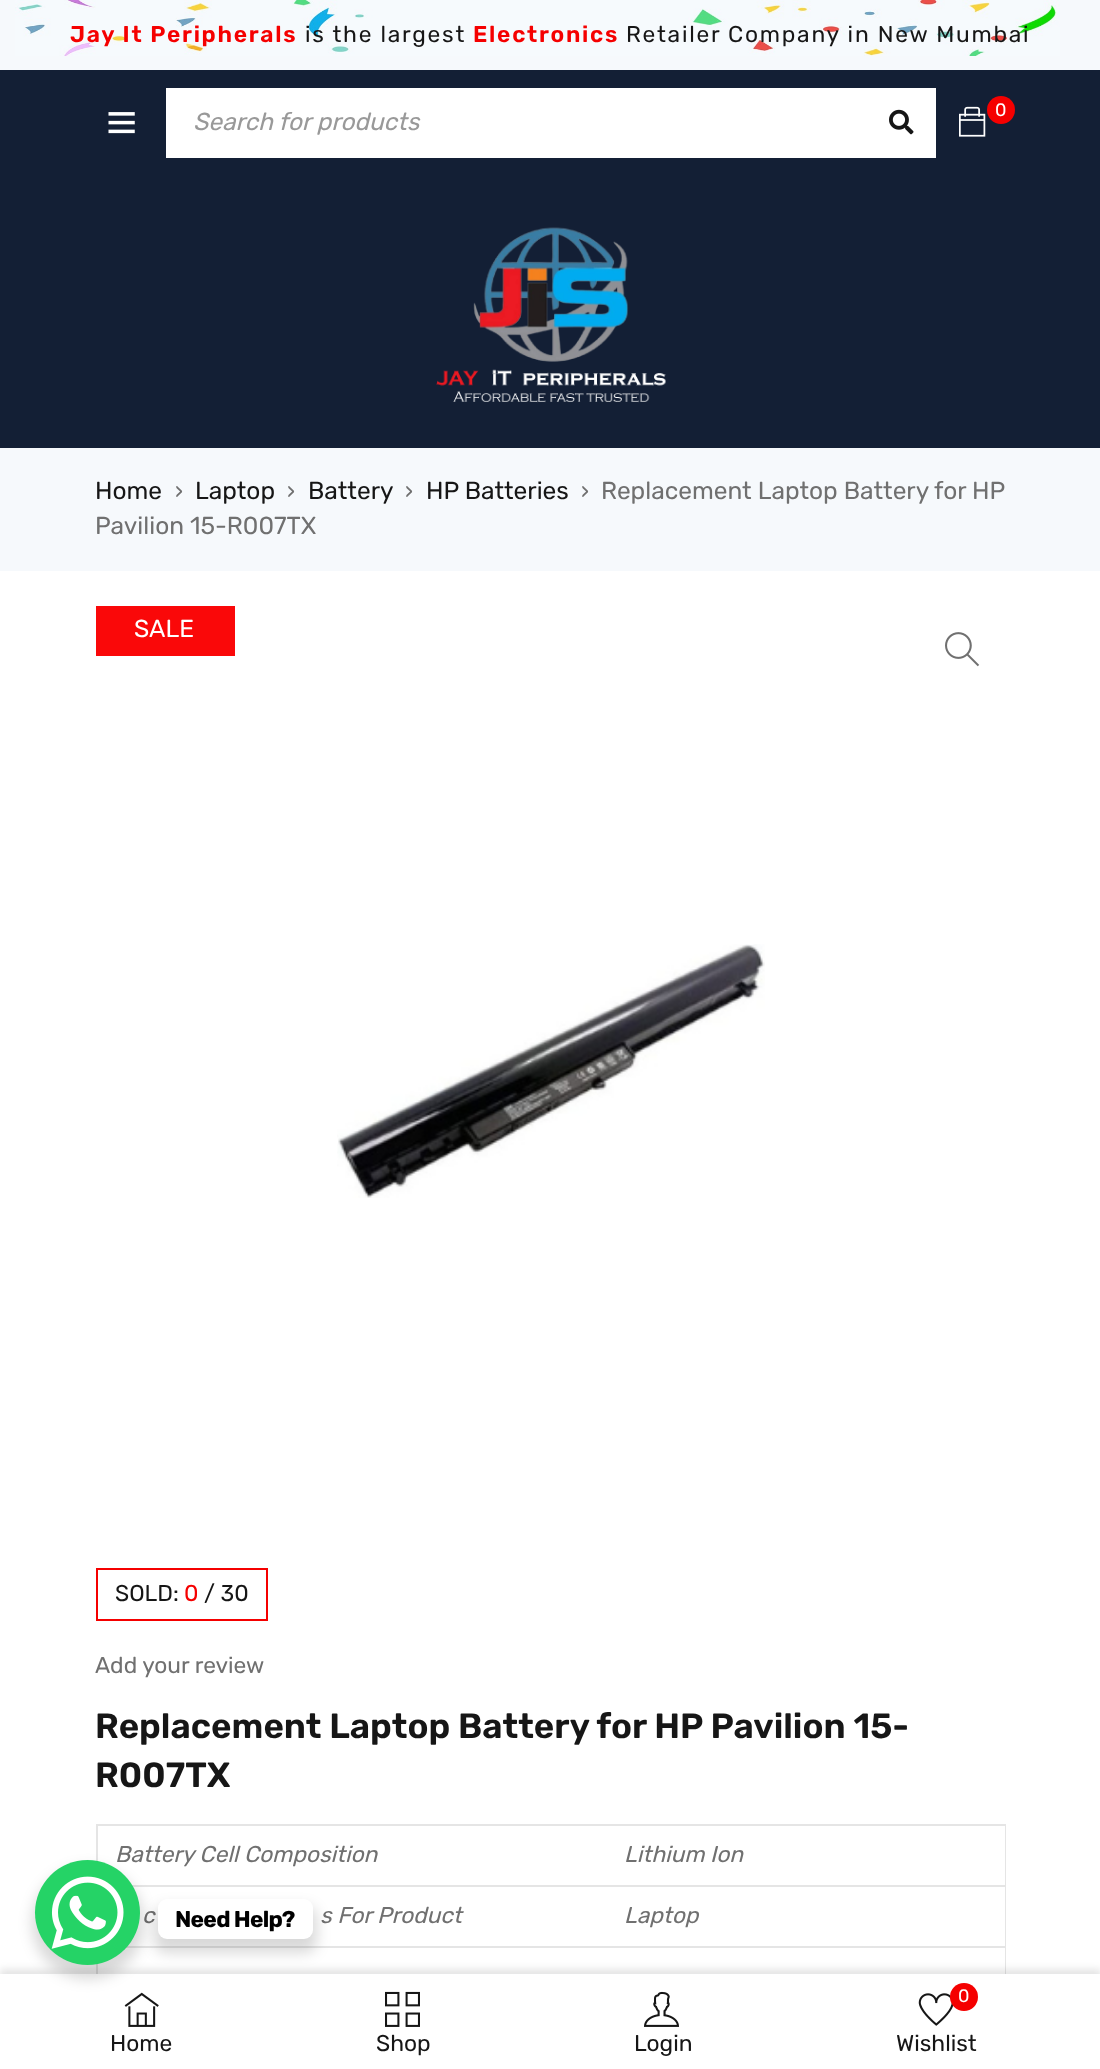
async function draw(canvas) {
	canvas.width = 1100;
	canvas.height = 2069;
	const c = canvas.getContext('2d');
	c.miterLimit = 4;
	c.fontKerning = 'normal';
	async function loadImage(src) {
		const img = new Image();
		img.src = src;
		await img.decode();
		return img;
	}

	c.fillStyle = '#fff';
	c.fillRect(0, 0, 1100, 2069);
	c.fillStyle = '#f6f9fc';
	c.fillRect(0, 0, 1100, 70);
	c.drawImage(await loadImage('img1.png'), 15, 0, 1045, 56);
	c.letterSpacing = '1.75px';
	c.font = '600 22.75px Rubik';
	c.fillStyle = '#f50000';
	c.fillText('Jay It Peripherals', 70, 42);
	c.font = '22.75px Rubik';
	c.fillStyle = '#161616';
	c.fillText('is the largest', 305, 42);
	c.font = '600 22.75px Rubik';
	c.fillStyle = '#f50000';
	c.fillText('Electronics', 473, 42);
	c.font = '22.75px Rubik';
	c.fillStyle = '#161616';
	c.fillText('Retailer Company in New Mumbai', 626, 42);
	c.fillStyle = '#131f35';
	c.fillRect(0, 70, 1100, 378);
	c.drawImage(await loadImage('img2.png'), 108, 112, 27, 22);
	c.fillStyle = '#fff';
	c.fillRect(166, 88, 770, 70);
	c.letterSpacing = '0px';
	c.font = 'italic 24.5px Rubik';
	c.fillStyle = '#999';
	c.fillText('Search for products', 193, 130);
	c.drawImage(await loadImage('img3.png'), 889, 109, 25, 26);
	c.drawImage(await loadImage('img4.png'), 959, 106, 27, 31);
	c.fillStyle = '#f50000';
	c.beginPath();
	c.arc(1001, 110, 14, 0, 2 * Math.PI);
	c.fill();
	c.font = '18px Rubik';
	c.fillStyle = '#fff';
	c.fillText('0', 995, 116);
	c.drawImage(await loadImage('img5.png'), 436, 227, 230, 176);
	c.fillStyle = '#f6f9fc';
	c.fillRect(0, 448, 1100, 123);
	c.font = '24.5px Rubik';
	c.fillStyle = '#161616';
	c.fillText('Home', 95, 499);
	c.font = '22.75px Rubik';
	c.fillStyle = '#707070';
	c.fillText('›', 175, 499);
	c.font = '24.5px Rubik';
	c.fillStyle = '#161616';
	c.fillText('Laptop', 195, 499);
	c.font = '22.75px Rubik';
	c.fillStyle = '#707070';
	c.fillText('›', 287, 499);
	c.font = '24.5px Rubik';
	c.fillStyle = '#161616';
	c.fillText('Battery', 308, 499);
	c.font = '22.75px Rubik';
	c.fillStyle = '#707070';
	c.fillText('›', 405, 499);
	c.font = '24.5px Rubik';
	c.fillStyle = '#161616';
	c.fillText('HP Batteries', 426, 499);
	c.font = '22.75px Rubik';
	c.fillStyle = '#707070';
	c.fillText('›', 581, 499);
	c.font = '24.5px Rubik';
	c.fillText('Replacement Laptop Battery for HP', 601, 499);
	c.fillText('Pavilion 15-R007TX', 95, 534);
	c.fillStyle = '#fa0809';
	c.fillRect(96, 606, 139, 50);
	c.fillStyle = '#fff';
	c.fillText('SALE', 134, 637);
	c.drawImage(await loadImage('img6.png'), 337, 944, 428, 254);
	c.drawImage(await loadImage('img7.png'), 945, 632, 35, 35);
	c.strokeStyle = '#f50000';
	c.lineWidth = 2;
	c.strokeRect(97, 1569, 170, 51);
	c.font = '22.75px Rubik';
	c.fillStyle = '#161616';
	c.fillText('SOLD:', 115, 1601);
	c.fillStyle = '#f50000';
	c.fillText('0', 184, 1601);
	c.fillStyle = '#161616';
	c.fillText('/ 30', 204, 1601);
	c.fillStyle = '#707070';
	c.fillText('Add your review', 95, 1673);
	c.font = '600 35px Rubik';
	c.fillStyle = '#161616';
	c.fillText('Replacement Laptop Battery for HP Pavilion 15-', 95, 1738);
	c.fillText('R007TX', 95, 1787);
	for (const [x, y, w, h, color] of [
		[96, 1824, 910, 2, '#e5e5e5'],
		[1005, 1824, 1, 150, '#e5e5e5'],
		[96, 1824, 2, 150, '#e5e5e5'],
	]) {
		c.fillStyle = color;
		c.fillRect(x, y, w, h);
	}
	c.font = 'italic 22.75px Rubik';
	c.fillStyle = '#707070';
	c.fillText('Battery Cell Composition', 115, 1862);
	c.fillStyle = '#e5e5e5';
	c.fillRect(132, 1885, 874, 2);
	c.fillStyle = '#707070';
	for (const [text, x, y] of [
		['Lithium Ion', 624, 1862],
		['c', 142, 1923],
		['s For Product', 320, 1923],
	]) {
		c.fillText(text, x, y);
	}
	c.fillStyle = '#e5e5e5';
	c.fillRect(126, 1946, 880, 2);
	c.fillStyle = '#707070';
	c.fillText('Laptop', 624, 1923);
	c.fillStyle = '#0000001a';
	c.filter = 'blur(3.5px)';
	c.beginPath();
	c.rect(0, 1969, 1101, 96);
	c.fill();
	c.filter = 'none';
	c.fillStyle = '#fff';
	c.fillRect(0, 1974, 1100, 95);
	c.drawImage(await loadImage('img9.png'), 124, 1992, 35, 35);
	c.fillStyle = '#00000026';
	c.filter = 'blur(7px)';
	c.beginPath();
	c.roundRect(32, 1867, 112, 112, 56);
	c.fill();
	c.filter = 'none';
	c.fillStyle = '#25d366';
	c.beginPath();
	c.arc(87.5, 1912.5, 52.5, 0, 2 * Math.PI);
	c.fill();
	c.drawImage(await loadImage('img8.png'), 51, 1876, 73, 73);
	c.fillStyle = '#00000026';
	c.filter = 'blur(7px)';
	c.beginPath();
	c.roundRect(154, 1906, 163, 47, 12);
	c.fill();
	c.filter = 'none';
	c.fillStyle = '#fff';
	c.beginPath();
	c.roundRect(158, 1899, 155, 40, 9);
	c.fill();
	c.letterSpacing = '-0.75px';
	c.font = 'bold 22.75px Rubik';
	c.fillStyle = '#000';
	c.fillText('Need Help?', 175, 1927);
	c.letterSpacing = '0px';
	c.font = '22.75px Rubik';
	c.fillStyle = '#161616';
	c.fillText('Home', 110, 2051);
	c.drawImage(await loadImage('img10.png'), 385, 1991, 35, 36);
	c.fillText('Shop', 376, 2051);
	c.drawImage(await loadImage('img11.png'), 644, 1991, 35, 36);
	c.fillText('Login', 634, 2051);
	c.drawImage(await loadImage('img12.png'), 918, 1993, 36, 33);
	c.fillStyle = '#f50000';
	c.beginPath();
	c.arc(964, 1997, 14, 0, 2 * Math.PI);
	c.fill();
	c.font = '18px Rubik';
	c.fillStyle = '#fff';
	c.fillText('0', 958, 2002);
	c.font = '22.75px Rubik';
	c.fillStyle = '#161616';
	c.fillText('Wishlist', 896, 2051);
}

draw(document.querySelector('canvas'));
